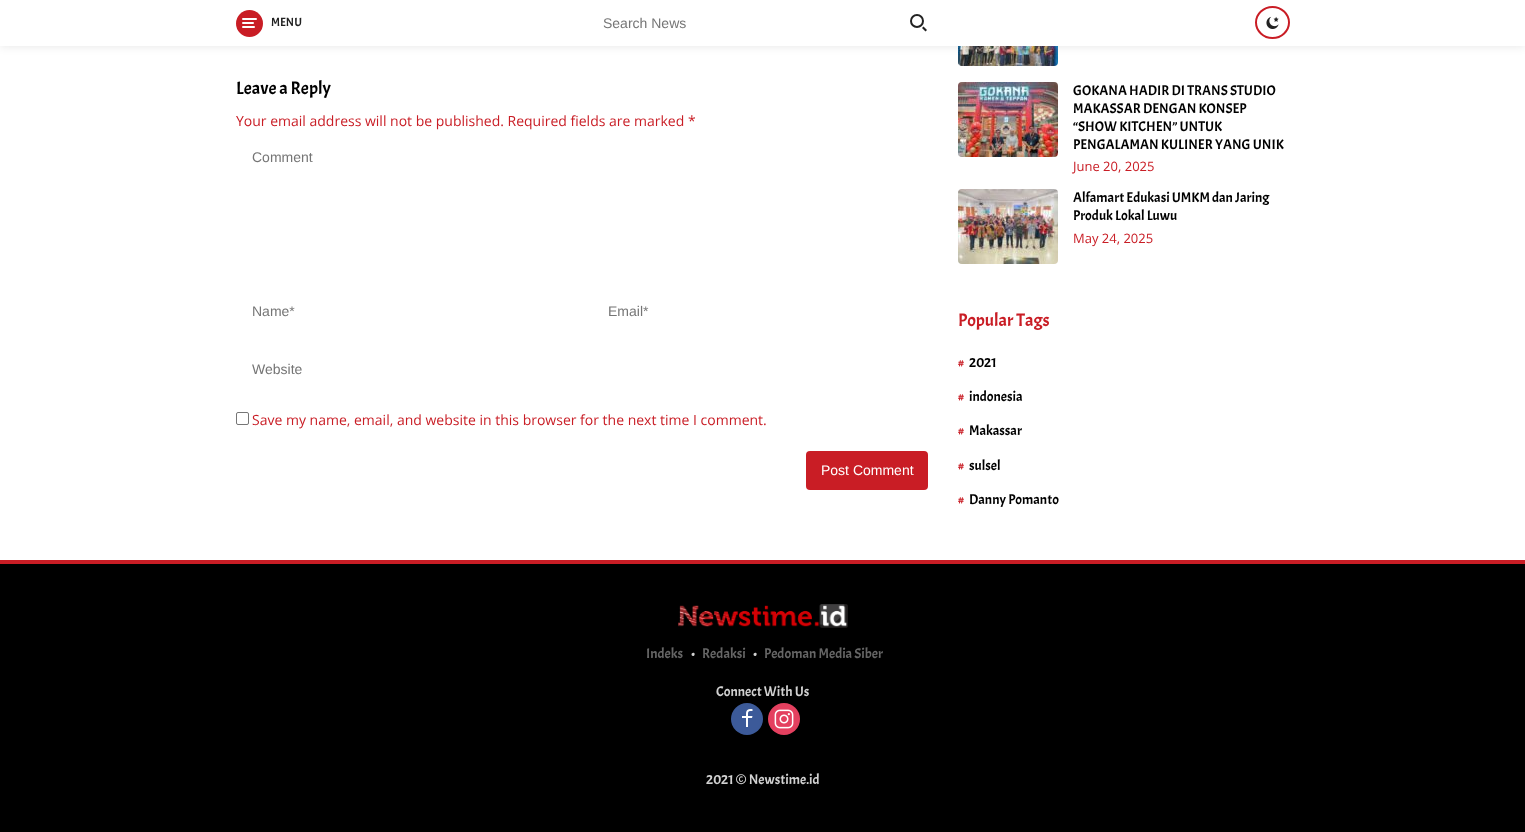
async function draw(canvas) {
	canvas.width = 1525;
	canvas.height = 832;
	const c = canvas.getContext('2d');
	c.miterLimit = 4;
	c.fontKerning = 'normal';
	async function loadImage(src) {
		const img = new Image();
		img.src = src;
		await img.decode();
		return img;
	}

	c.fillStyle = '#fff';
	c.fillRect(0, 0, 1525, 832);
	c.drawImage(await loadImage('img2.png'), 958, 46, 100, 20);
	c.fillStyle = '#0000001a';
	c.filter = 'blur(5px)';
	c.beginPath();
	c.rect(0, 0, 1525, 46);
	c.fill();
	c.filter = 'none';
	c.fillStyle = '#fff';
	c.fillRect(0, 0, 1525, 46);
	c.fillStyle = '#c91d25';
	c.beginPath();
	c.arc(249.5, 23.5, 13.5, 0, 2 * Math.PI);
	c.fill();
	c.fillStyle = '#fff';
	c.beginPath();
	c.roundRect(242, 18, 15, 2, 1);
	c.fill();
	c.beginPath();
	c.roundRect(242, 22, 12, 2, 1);
	c.fill();
	c.beginPath();
	c.roundRect(242, 26, 13, 2, 1);
	c.fill();
	c.font = '12px Acme';
	c.fillStyle = '#222';
	c.fillText('MENU', 271, 26);
	c.font = '14px Liberation Sans';
	c.fillStyle = '#757575';
	c.fillText('Search News', 603, 28);
	c.beginPath();
	c.arc(917, 21, 6, 0, 2 * Math.PI);
	c.strokeStyle = '#222';
	c.lineWidth = 2;
	c.stroke();
	c.fillStyle = '#222';
	c.beginPath();
	c.moveTo(923.5, 26.5);
	c.lineTo(927, 30);
	c.lineTo(925.5, 31.5);
	c.lineTo(922, 28);
	c.closePath();
	c.fill();
	c.beginPath();
	c.moveTo(1272.5, 7);
	c.bezierCurveTo(1281.5, 7, 1289, 14, 1289, 22.5);
	c.bezierCurveTo(1289, 31, 1281.5, 38, 1272.5, 38);
	c.bezierCurveTo(1263.5, 38, 1256, 31, 1256, 22.5);
	c.bezierCurveTo(1256, 14, 1263.5, 7, 1272.5, 7);
	c.closePath();
	c.strokeStyle = '#c91d25';
	c.stroke();
	c.drawImage(await loadImage('img1.png'), 1266, 16, 13, 13);
	c.font = '18px Acme';
	c.fillStyle = '#000';
	c.fillText('Leave a Reply', 236, 94);
	c.font = '14px Open Sans';
	c.fillStyle = '#c91d25';
	c.fillText('Your email address will not be published. Required fields are marked *', 236, 126);
	c.font = '14px Liberation Sans';
	c.fillStyle = '#757575';
	for (const [text, x, y] of [
		['Comment', 252, 162],
		['Name*', 252, 316],
		['Email*', 608, 316],
		['Website', 252, 374],
	]) {
		c.fillText(text, x, y);
	}
	c.beginPath();
	c.roundRect(236.5, 412.5, 12, 12, 1.5);
	c.strokeStyle = '#767676';
	c.lineWidth = 1;
	c.stroke();
	c.font = '14px Open Sans';
	c.fillStyle = '#c91d25';
	c.fillText('Save my name, email, and website in this browser for the next time I comment.', 252, 425);
	c.beginPath();
	c.roundRect(806, 451, 122, 39, 4);
	c.fill();
	c.font = '14px Liberation Sans';
	c.fillStyle = '#fff';
	c.fillText('Post Comment', 821, 475);
	c.drawImage(await loadImage('img3.png'), 958, 82, 100, 75);
	c.font = '14px Acme';
	c.fillStyle = '#000';
	for (const [text, x, y] of [
		['GOKANA HADIR DI TRANS STUDIO', 1073, 95],
		['MAKASSAR DENGAN KONSEP', 1073, 113],
		['“SHOW KITCHEN” UNTUK', 1073, 131],
		['PENGALAMAN KULINER YANG UNIK', 1073, 149],
	]) {
		c.fillText(text, x, y);
	}
	c.font = '13px Open Sans';
	c.fillStyle = '#c91d25';
	c.fillText('June 20, 2025', 1073, 171);
	c.drawImage(await loadImage('img4.png'), 958, 189, 100, 75);
	c.font = '14px Acme';
	c.fillStyle = '#000';
	c.fillText('Alfamart Edukasi UMKM dan Jaring', 1073, 202);
	c.fillText('Produk Lokal Luwu', 1073, 220);
	c.font = '13px Open Sans';
	c.fillStyle = '#c91d25';
	c.fillText('May 24, 2025', 1073, 243);
	c.font = '18px Acme';
	c.fillText('Popular Tags', 958, 326);
	c.font = '14px Acme';
	c.fillText('#', 958, 367);
	c.fillStyle = '#000';
	c.fillText('2021', 969, 367);
	c.fillStyle = '#c91d25';
	c.fillText('#', 958, 401);
	c.fillStyle = '#000';
	c.fillText('indonesia', 969, 401);
	c.fillStyle = '#c91d25';
	c.fillText('#', 958, 435);
	c.fillStyle = '#000';
	c.fillText('Makassar', 969, 435);
	c.fillStyle = '#c91d25';
	c.fillText('#', 958, 470);
	c.fillStyle = '#000';
	c.fillText('sulsel', 969, 470);
	c.fillStyle = '#c91d25';
	c.fillText('#', 958, 504);
	c.fillStyle = '#000';
	c.fillText('Danny Pomanto', 969, 504);
	c.fillRect(0, 564, 1525, 268);
	c.fillStyle = '#c91d25';
	c.fillRect(0, 560, 1525, 4);
	c.drawImage(await loadImage('img5.png'), 678, 604, 170, 24);
	c.fillStyle = '#666';
	c.fillText('Indeks', 646, 658);
	c.fillStyle = '#d1d1d1';
	c.fillText('•', 691, 658);
	c.fillStyle = '#666';
	c.fillText('Redaksi', 702, 658);
	c.fillStyle = '#d1d1d1';
	c.fillText('•', 753, 658);
	c.fillStyle = '#666';
	c.fillText('Pedoman Media Siber', 764, 658);
	c.fillStyle = '#d1d1d1';
	c.fillText('Connect With Us', 716, 696);
	c.fillStyle = '#3c5a99';
	c.beginPath();
	c.arc(747, 719, 16, 0, 2 * Math.PI);
	c.fill();
	c.drawImage(await loadImage('img6.png'), 742, 709, 11, 18);
	c.fillStyle = '#e4405f';
	c.beginPath();
	c.arc(784, 719, 16, 0, 2 * Math.PI);
	c.fill();
	c.drawImage(await loadImage('img7.png'), 774, 709, 20, 20);
	c.fillStyle = '#d1d1d1';
	c.fillText('2021 © Newstime.id', 706, 784);
}

draw(document.querySelector('canvas'));
